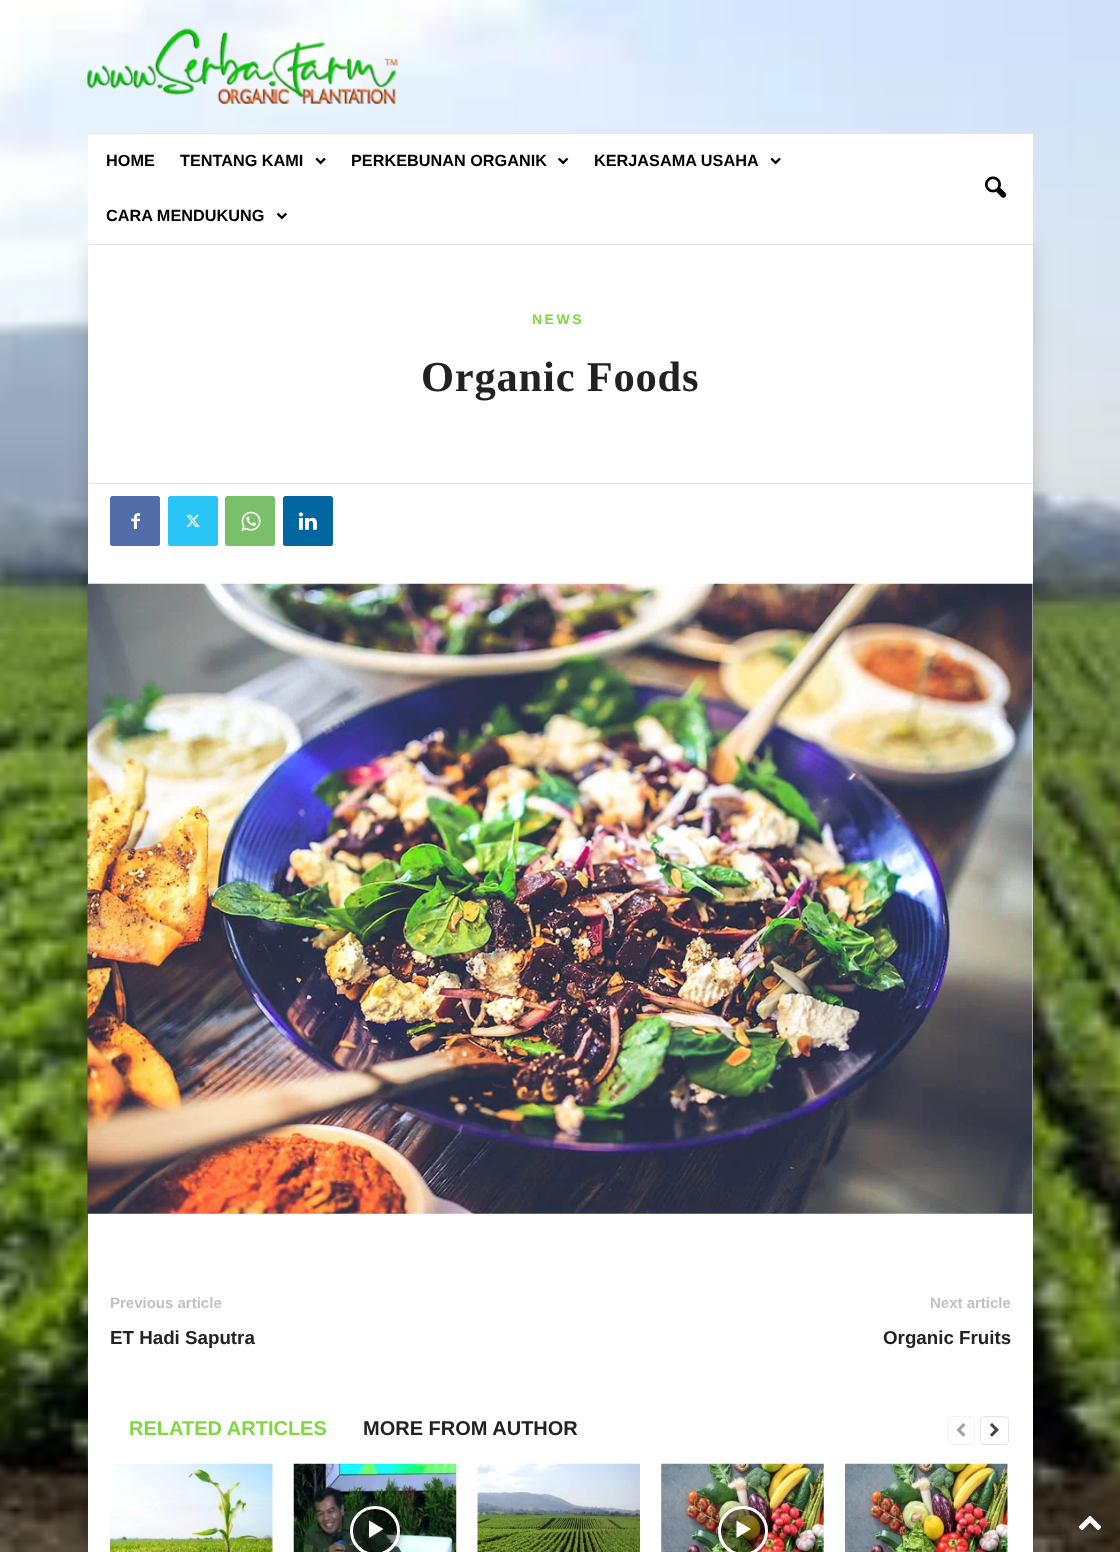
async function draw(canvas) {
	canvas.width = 1120;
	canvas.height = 1552;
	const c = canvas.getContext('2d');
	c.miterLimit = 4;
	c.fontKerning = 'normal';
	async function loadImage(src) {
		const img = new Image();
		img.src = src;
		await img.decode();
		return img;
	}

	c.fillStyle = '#fff';
	c.fillRect(0, 0, 1120, 1552);
	c.drawImage(await loadImage('img1.png'), 0, 0, 1120, 1552);
	c.drawImage(await loadImage('img2.png'), 87, 28, 311, 76);
	c.fillRect(88, 245, 945, 1307);
	c.save();
	c.beginPath();
	c.moveTo(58, 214);
	c.lineTo(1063, 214);
	c.lineTo(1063, 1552);
	c.lineTo(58, 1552);
	c.closePath();
	c.moveTo(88, 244);
	c.lineTo(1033, 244);
	c.lineTo(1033, 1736);
	c.lineTo(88, 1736);
	c.closePath();
	c.clip('evenodd');
	c.fillStyle = '#00000026';
	c.filter = 'blur(9.5px)';
	c.beginPath();
	c.rect(88, 244, 945, 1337);
	c.fill();
	c.filter = 'none';
	c.restore();
	for (const [x, y, w, h, color] of [
		[88, 134, 945, 110, '#fff'],
		[88, 133, 945, 1, '#e6e6e6'],
		[88, 244, 945, 1, '#e6e6e6'],
	]) {
		c.fillStyle = color;
		c.fillRect(x, y, w, h);
	}
	c.font = 'bold 16.25px Liberation Sans';
	c.fillStyle = '#000';
	c.fillText('HOME', 106, 166);
	c.fillText('TENTANG KAMI', 180, 166);
	c.drawImage(await loadImage('img3.png'), 315, 157, 11, 8);
	c.fillText('PERKEBUNAN ORGANIK', 351, 166);
	c.drawImage(await loadImage('img4.png'), 558, 157, 11, 8);
	c.fillText('KERJASAMA USAHA', 594, 166);
	c.drawImage(await loadImage('img3.png'), 770, 157, 11, 8);
	c.fillText('CARA MENDUKUNG', 106, 221);
	c.drawImage(await loadImage('img5.png'), 276, 212, 11, 8);
	c.drawImage(await loadImage('img6.png'), 985, 176, 22, 22);
	c.letterSpacing = '2.5px';
	c.font = 'bold 14px Liberation Sans';
	c.fillStyle = '#81d742';
	c.fillText('NEWS', 532, 324);
	c.letterSpacing = '0.8px';
	c.font = 'bold 42.5px Liberation Serif';
	c.fillStyle = '#222';
	c.fillText('Organic Foods', 421, 391);
	c.fillStyle = '#e6e6e6';
	c.fillRect(89, 483, 944, 1);
	c.fillStyle = '#516eab';
	c.beginPath();
	c.roundRect(110, 496, 50, 50, 2.5);
	c.fill();
	c.drawImage(await loadImage('img7.png'), 131, 513, 9, 16);
	c.fillStyle = '#29c5f6';
	c.beginPath();
	c.roundRect(168, 496, 50, 50, 2.5);
	c.fill();
	c.drawImage(await loadImage('img8.png'), 186, 514, 14, 13);
	c.fillStyle = '#7bbf6a';
	c.beginPath();
	c.roundRect(225, 496, 50, 50, 2.5);
	c.fill();
	c.drawImage(await loadImage('img9.png'), 241, 511, 20, 20);
	c.fillStyle = '#0266a0';
	c.beginPath();
	c.roundRect(283, 496, 50, 50, 2.5);
	c.fill();
	c.drawImage(await loadImage('img10.png'), 298, 512, 19, 18);
	c.drawImage(await loadImage('img11.png'), 87, 583, 946, 631);
	c.fillStyle = '#fff';
	c.fillRect(1032, 1253, 1, 1);
	c.letterSpacing = '0px';
	c.font = 'bold 15px Liberation Sans';
	c.fillStyle = '#c1c1c1';
	c.fillText('Previous article', 110, 1308);
	c.font = 'bold 18.75px Liberation Sans';
	c.fillStyle = '#222';
	c.fillText('ET Hadi Saputra', 110, 1344);
	c.font = 'bold 15px Liberation Sans';
	c.fillStyle = '#c1c1c1';
	c.fillText('Next article', 930, 1308);
	c.font = 'bold 18.75px Liberation Sans';
	c.fillStyle = '#222';
	c.fillText('Organic Fruits', 883, 1344);
	c.fillStyle = '#fff';
	c.fillRect(1032, 1393, 1, 1);
	c.font = 'bold 20px Liberation Sans';
	c.fillStyle = '#81d742';
	c.fillText('RELATED ARTICLES', 129, 1435);
	c.fillStyle = '#222';
	c.fillText('MORE FROM AUTHOR', 363, 1435);
	c.beginPath();
	c.roundRect(948.5, 1416.5, 26, 28, 3.5);
	c.strokeStyle = '#f3f3f3';
	c.stroke();
	c.drawImage(await loadImage('img12.png'), 956, 1423, 10, 14);
	c.beginPath();
	c.roundRect(980.5, 1416.5, 28, 28, 3.5);
	c.strokeStyle = '#e6e6e6';
	c.stroke();
	c.drawImage(await loadImage('img13.png'), 990, 1423, 9, 14);
	c.drawImage(await loadImage('img14.png'), 110, 1463, 163, 89);
	c.drawImage(await loadImage('img15.png'), 293, 1463, 164, 89);
	c.save();
	c.beginPath();
	c.moveTo(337, 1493);
	c.lineTo(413, 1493);
	c.lineTo(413, 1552);
	c.lineTo(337, 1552);
	c.closePath();
	c.moveTo(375, 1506);
	c.bezierCurveTo(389, 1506, 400, 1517, 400, 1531);
	c.bezierCurveTo(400, 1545, 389, 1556, 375, 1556);
	c.bezierCurveTo(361, 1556, 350, 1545, 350, 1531);
	c.bezierCurveTo(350, 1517, 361, 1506, 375, 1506);
	c.closePath();
	c.clip('evenodd');
	c.fillStyle = '#00000066';
	c.filter = 'blur(4px)';
	c.beginPath();
	c.roundRect(350, 1506, 50, 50, 25);
	c.fill();
	c.filter = 'none';
	c.restore();
	c.fillStyle = '#0000007a';
	c.beginPath();
	c.arc(375, 1531, 23.5, 0, 2 * Math.PI);
	c.fill();
	c.strokeStyle = '#fff';
	c.lineWidth = 3;
	c.stroke();
	c.fillStyle = '#fff';
	c.beginPath();
	c.moveTo(369, 1520.5);
	c.lineTo(369, 1538);
	c.lineTo(383.5, 1529);
	c.closePath();
	c.fill();
	c.drawImage(await loadImage('img16.png'), 477, 1463, 163, 89);
	c.drawImage(await loadImage('img17.png'), 661, 1463, 163, 89);
	c.save();
	c.beginPath();
	c.moveTo(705, 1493);
	c.lineTo(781, 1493);
	c.lineTo(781, 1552);
	c.lineTo(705, 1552);
	c.closePath();
	c.moveTo(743, 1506);
	c.bezierCurveTo(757, 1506, 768, 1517, 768, 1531);
	c.bezierCurveTo(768, 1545, 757, 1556, 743, 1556);
	c.bezierCurveTo(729, 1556, 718, 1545, 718, 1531);
	c.bezierCurveTo(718, 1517, 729, 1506, 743, 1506);
	c.closePath();
	c.clip('evenodd');
	c.fillStyle = '#00000066';
	c.filter = 'blur(4px)';
	c.beginPath();
	c.roundRect(718, 1506, 50, 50, 25);
	c.fill();
	c.filter = 'none';
	c.restore();
	c.fillStyle = '#0000007a';
	c.beginPath();
	c.arc(743, 1531, 23.5, 0, 2 * Math.PI);
	c.fill();
	c.stroke();
	c.fillStyle = '#fff';
	c.beginPath();
	c.moveTo(736.5, 1520.5);
	c.lineTo(736.5, 1538);
	c.lineTo(751, 1529);
	c.closePath();
	c.fill();
	c.drawImage(await loadImage('img18.png'), 845, 1463, 163, 89);
	c.drawImage(await loadImage('img19.png'), 1078, 1515, 24, 16);
}

draw(document.querySelector('canvas'));
